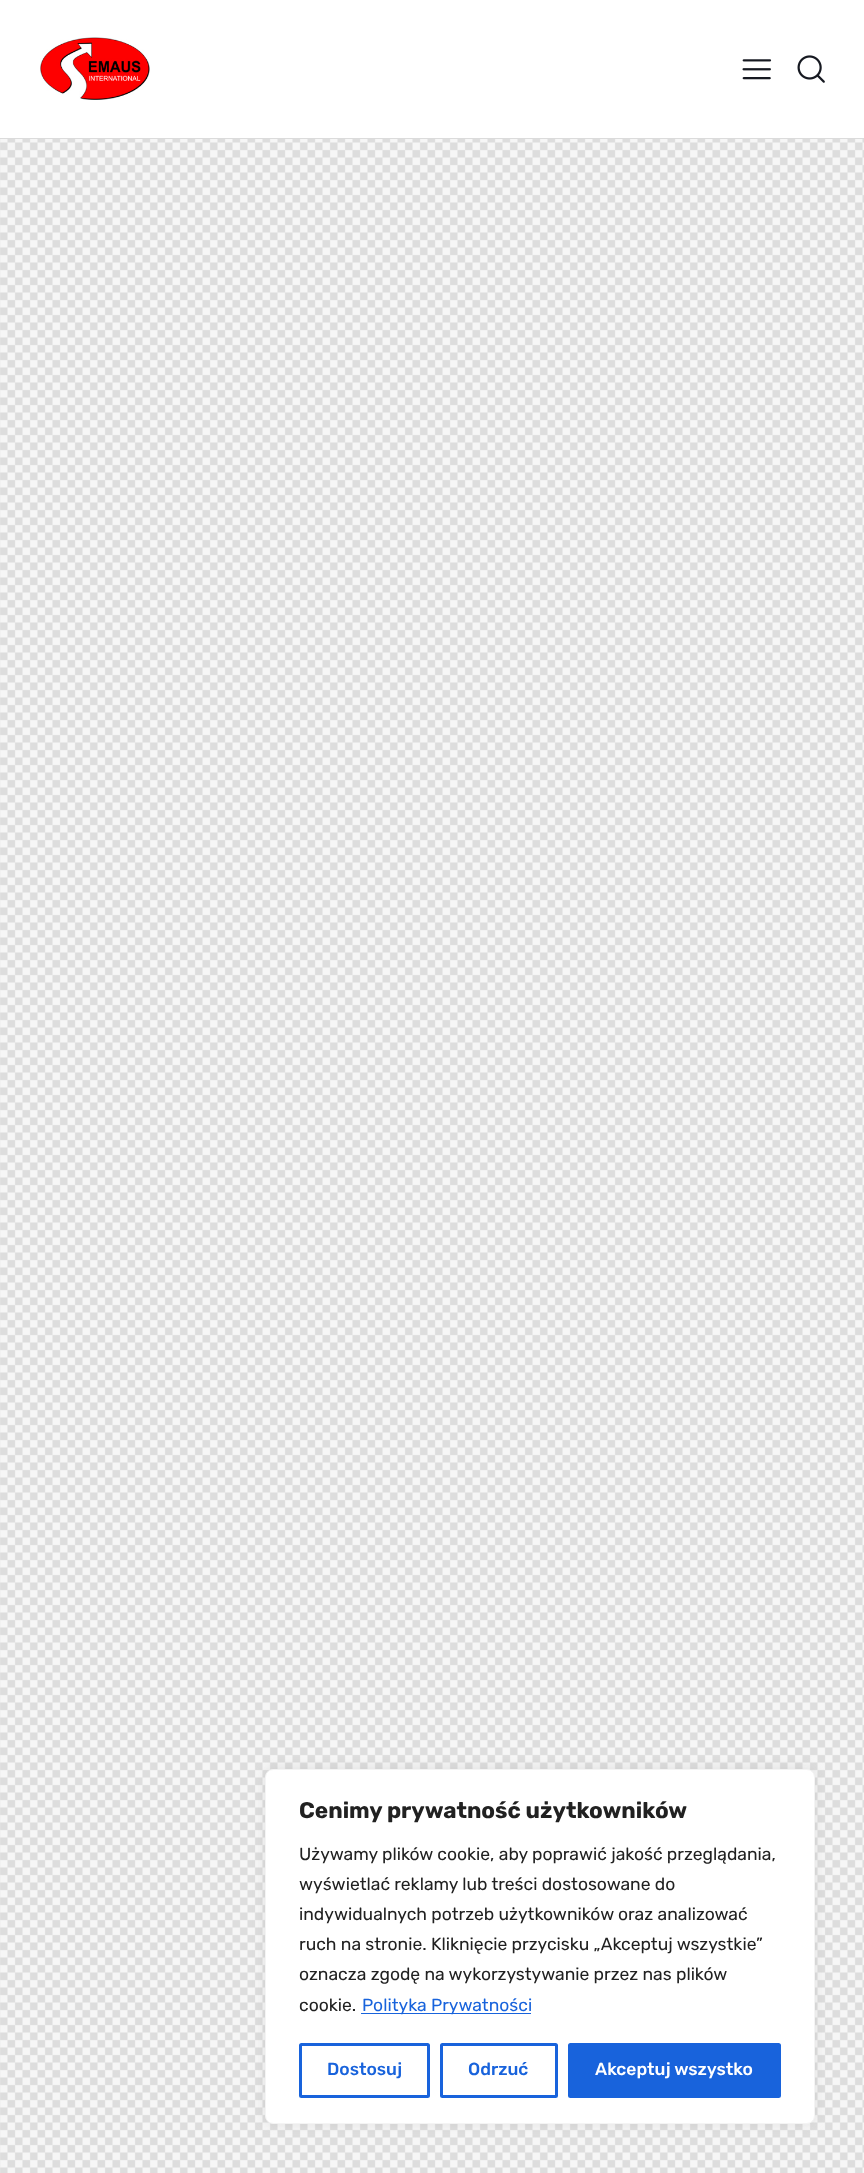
async function draw(canvas) {
	canvas.width = 864;
	canvas.height = 2173;
	const c = canvas.getContext('2d');
	c.miterLimit = 4;
	c.fontKerning = 'normal';
	async function loadImage(src) {
		const img = new Image();
		img.src = src;
		await img.decode();
		return img;
	}

	c.fillStyle = '#fff';
	c.fillRect(0, 0, 864, 2173);
	c.drawImage(await loadImage('img1.png'), 0, 139, 864, 2034);
	c.fillStyle = '#dbdbdb';
	c.fillRect(0, 138, 864, 1);
	c.drawImage(await loadImage('img2.png'), 40, 37, 110, 63);
	c.drawImage(await loadImage('img3.png'), 742, 59, 30, 21);
	c.drawImage(await loadImage('img4.png'), 797, 55, 28, 28);
	c.fillStyle = '#acabab4d';
	c.filter = 'blur(6px)';
	c.beginPath();
	c.roundRect(265, 1768, 550, 355, 8);
	c.fill();
	c.filter = 'none';
	c.fillStyle = '#fff';
	c.beginPath();
	c.roundRect(265.5, 1769.5, 549, 354, 7.5);
	c.fill();
	c.strokeStyle = '#f4f4f4';
	c.stroke();
	c.font = 'bold 22.5px Rubik';
	c.fillStyle = '#212121';
	c.fillText('Cenimy prywatność użytkowników', 299, 1818);
	c.font = '17.5px Rubik';
	for (const [text, x, y] of [
		['Używamy plików cookie, aby poprawić jakość przeglądania,', 299, 1860],
		['wyświetlać reklamy lub treści dostosowane do', 299, 1890],
		['indywidualnych potrzeb użytkowników oraz analizować', 299, 1920],
		['ruch na stronie. Kliknięcie przycisku „Akceptuj wszystkie”', 299, 1950],
		['oznacza zgodę na wykorzystywanie przez nas plików', 299, 1980],
		['cookie.', 299, 2011],
	]) {
		c.fillText(text, x, y);
	}
	c.fillStyle = '#1863dc';
	c.fillRect(361, 2013, 170, 1);
	c.fillText('Polityka Prywatności', 362, 2011);
	c.beginPath();
	c.roundRect(300.5, 2044.5, 128, 52, 1);
	c.strokeStyle = '#1863dc';
	c.lineWidth = 3;
	c.stroke();
	c.font = '500 17.5px Rubik';
	c.fillText('Dostosuj', 327, 2075);
	c.beginPath();
	c.roundRect(441.5, 2044.5, 115, 52, 1);
	c.stroke();
	c.fillText('Odrzuć', 468, 2075);
	c.beginPath();
	c.roundRect(569.5, 2044.5, 210, 52, 1);
	c.fill();
	c.stroke();
	c.fillStyle = '#fff';
	c.fillText('Akceptuj wszystko', 595, 2075);
}

draw(document.querySelector('canvas'));
